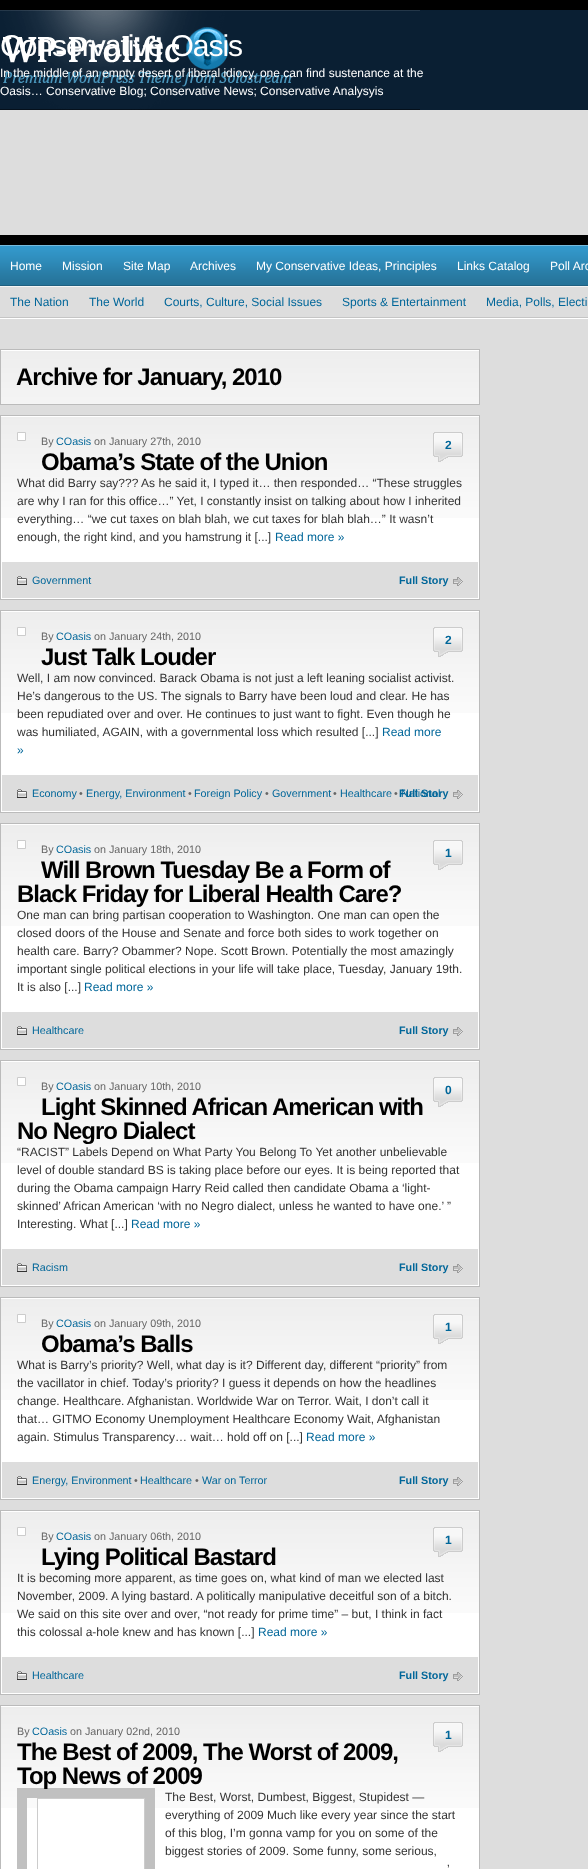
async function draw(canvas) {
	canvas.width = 588;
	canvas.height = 1869;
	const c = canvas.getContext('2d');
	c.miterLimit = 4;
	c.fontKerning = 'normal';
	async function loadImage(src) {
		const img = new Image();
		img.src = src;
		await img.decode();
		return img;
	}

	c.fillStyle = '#ddd';
	c.fillRect(0, 0, 588, 1869);
	for (const [x, y, w, h, color] of [
		[420, 10, 168, 100, '#0a1f33'],
		[0, 0, 588, 10, '#000'],
		[0, 235, 588, 10, '#000'],
	]) {
		c.fillStyle = color;
		c.fillRect(x, y, w, h);
	}
	c.drawImage(await loadImage('img1.png'), 0, 10, 420, 100);
	c.letterSpacing = '-1px';
	c.font = '30px Liberation Sans';
	c.fillStyle = '#fff';
	c.fillText('Conservative Oasis', 0, 56);
	c.letterSpacing = '0px';
	c.font = '12px Liberation Sans';
	c.fillText('In the middle of an empty desert of liberal idiocy, one can find sustenance at the', 0, 77);
	c.fillText('Oasis… Conservative Blog; Conservative News; Conservative Analysyis', 0, 95);
	c.drawImage(await loadImage('img2.png'), 0, 245, 588, 41);
	for (const [text, x, y] of [
		['Home', 10, 270],
		['Mission', 62, 270],
		['Site Map', 123, 270],
		['Archives', 190, 270],
		['My Conservative Ideas, Principles', 256, 270],
		['Links Catalog', 457, 270],
		['Poll Arc', 550, 270],
	]) {
		c.fillText(text, x, y);
	}
	c.fillStyle = '#f5f5f5';
	c.fillRect(0, 286, 588, 1);
	c.fillStyle = '#c5c5c5';
	c.fillRect(0, 317, 588, 1);
	c.fillStyle = '#069';
	for (const [text, x, y] of [
		['The Nation', 10, 306],
		['The World', 89, 306],
		['Courts, Culture, Social Issues', 164, 306],
		['Sports & Entertainment', 342, 306],
		['Media, Polls, Electi', 486, 306],
	]) {
		c.fillText(text, x, y);
	}
	c.fillStyle = '#fff';
	c.fillRect(0, 318, 588, 1);
	c.drawImage(await loadImage('img3.png'), 1, 350, 478, 54);
	c.strokeStyle = '#bbb';
	c.strokeRect(0.5, 349.5, 479, 55);
	c.letterSpacing = '-1px';
	c.font = 'bold 24px Liberation Sans';
	c.fillStyle = '#000';
	c.fillText('Archive for January, 2010', 16, 385);
	c.fillStyle = '#fff';
	c.fillRect(1, 416, 478, 183);
	c.drawImage(await loadImage('img4.png'), 1, 417, 478, 101);
	c.strokeRect(0.5, 415.5, 479, 184);
	c.beginPath();
	c.rect(17.5, 432.5, 8, 8);
	c.fill();
	c.strokeStyle = '#ccc';
	c.stroke();
	c.letterSpacing = '0px';
	c.font = '10.75px Liberation Sans';
	c.fillStyle = '#666';
	c.fillText('By', 41, 445);
	c.fillStyle = '#069';
	c.fillText('COasis', 56, 445);
	c.fillStyle = '#666';
	c.fillText('on January 27th, 2010', 94, 445);
	c.drawImage(await loadImage('img5.png'), 433, 432, 30, 30);
	c.font = 'bold 12px Liberation Sans';
	c.fillStyle = '#069';
	c.fillText('2', 445, 449);
	c.letterSpacing = '-1px';
	c.font = 'bold 24px Liberation Sans';
	c.fillStyle = '#000';
	c.fillText('Obama’s State of the Union', 41, 470);
	c.letterSpacing = '0px';
	c.font = '12px Liberation Sans';
	c.fillStyle = '#333';
	for (const [text, x, y] of [
		['What did Barry say??? As he said it, I typed it… then responded… “These struggles', 17, 487],
		['are why I ran for this office…” Yet, I constantly insist on talking about how I inherited', 17, 505],
		['everything… “we cut taxes on blah blah, we cut taxes for blah blah…” It wasn’t', 17, 523],
		['enough, the right kind, and you hamstrung it [...]', 17, 541],
	]) {
		c.fillText(text, x, y);
	}
	c.fillStyle = '#069';
	c.fillText('Read more »', 275, 541);
	c.fillStyle = '#ddd';
	c.fillRect(2, 562, 476, 36);
	c.drawImage(await loadImage('img6.png'), 17, 576, 10, 9);
	c.font = '10.75px Liberation Sans';
	c.fillStyle = '#069';
	c.fillText('Government', 32, 584);
	c.drawImage(await loadImage('img7.png'), 453, 577, 10, 9);
	c.font = 'bold 10.75px Liberation Sans';
	c.fillText('Full Story', 399, 584);
	c.fillStyle = '#fff';
	c.fillRect(1, 611, 478, 201);
	c.drawImage(await loadImage('img4.png'), 1, 612, 478, 101);
	c.strokeStyle = '#bbb';
	c.strokeRect(0.5, 610.5, 479, 202);
	c.beginPath();
	c.rect(17.5, 627.5, 8, 8);
	c.fill();
	c.strokeStyle = '#ccc';
	c.stroke();
	c.font = '10.75px Liberation Sans';
	c.fillStyle = '#666';
	c.fillText('By', 41, 640);
	c.fillStyle = '#069';
	c.fillText('COasis', 56, 640);
	c.fillStyle = '#666';
	c.fillText('on January 24th, 2010', 94, 640);
	c.drawImage(await loadImage('img5.png'), 433, 627, 30, 30);
	c.font = 'bold 12px Liberation Sans';
	c.fillStyle = '#069';
	c.fillText('2', 445, 644);
	c.letterSpacing = '-1px';
	c.font = 'bold 24px Liberation Sans';
	c.fillStyle = '#000';
	c.fillText('Just Talk Louder', 41, 665);
	c.letterSpacing = '0px';
	c.font = '12px Liberation Sans';
	c.fillStyle = '#333';
	for (const [text, x, y] of [
		['Well, I am now convinced. Barack Obama is not just a left leaning socialist activist.', 17, 682],
		['He’s dangerous to the US. The signals to Barry have been loud and clear. He has', 17, 700],
		['been repudiated over and over. He continues to just want to fight. Even though he', 17, 718],
		['was humiliated, AGAIN, with a governmental loss which resulted [...]', 17, 736],
	]) {
		c.fillText(text, x, y);
	}
	c.fillStyle = '#069';
	c.fillText('Read more', 382, 736);
	c.fillText('»', 17, 754);
	c.fillStyle = '#ddd';
	c.fillRect(2, 775, 476, 36);
	c.drawImage(await loadImage('img6.png'), 17, 789, 10, 9);
	c.font = '10.75px Liberation Sans';
	c.fillStyle = '#069';
	for (const [text, x, y] of [
		['Economy', 32, 797],
		['Energy, Environment', 86, 797],
		['Foreign Policy', 194, 797],
		['Government', 272, 797],
		['Healthcare', 340, 797],
	]) {
		c.fillText(text, x, y);
	}
	c.drawImage(await loadImage('img7.png'), 453, 790, 10, 9);
	c.fillText('National', 401, 797);
	c.font = 'bold 10.75px Liberation Sans';
	c.fillText('Full Story', 399, 797);
	c.font = '10.75px Liberation Sans';
	c.fillStyle = '#666';
	for (const [text, x, y] of [
		['•', 79, 797],
		['•', 188, 797],
		['•', 265, 797],
		['•', 333, 797],
		['•', 394, 797],
	]) {
		c.fillText(text, x, y);
	}
	c.fillStyle = '#fff';
	c.fillRect(1, 824, 478, 225);
	c.drawImage(await loadImage('img4.png'), 1, 825, 478, 101);
	c.strokeStyle = '#bbb';
	c.strokeRect(0.5, 823.5, 479, 226);
	c.beginPath();
	c.rect(17.5, 840.5, 8, 8);
	c.fill();
	c.strokeStyle = '#ccc';
	c.stroke();
	c.fillStyle = '#666';
	c.fillText('By', 41, 853);
	c.fillStyle = '#069';
	c.fillText('COasis', 56, 853);
	c.fillStyle = '#666';
	c.fillText('on January 18th, 2010', 94, 853);
	c.drawImage(await loadImage('img5.png'), 433, 840, 30, 30);
	c.font = 'bold 12px Liberation Sans';
	c.fillStyle = '#069';
	c.fillText('1', 445, 857);
	c.letterSpacing = '-1px';
	c.font = 'bold 24px Liberation Sans';
	c.fillStyle = '#000';
	c.fillText('Will Brown Tuesday Be a Form of', 41, 878);
	c.fillText('Black Friday for Liberal Health Care?', 17, 902);
	c.letterSpacing = '0px';
	c.font = '12px Liberation Sans';
	c.fillStyle = '#333';
	for (const [text, x, y] of [
		['One man can bring partisan cooperation to Washington. One man can open the', 17, 919],
		['closed doors of the House and Senate and force both sides to work together on', 17, 937],
		['health care. Barry? Obammer? Nope. Scott Brown. Potentially the most amazingly', 17, 955],
		['important single political elections in your life will take place, Tuesday, January 19th.', 17, 973],
		['It is also [...]', 17, 991],
	]) {
		c.fillText(text, x, y);
	}
	c.fillStyle = '#069';
	c.fillText('Read more »', 84, 991);
	c.fillStyle = '#ddd';
	c.fillRect(2, 1012, 476, 36);
	c.drawImage(await loadImage('img6.png'), 17, 1026, 10, 9);
	c.font = '10.75px Liberation Sans';
	c.fillStyle = '#069';
	c.fillText('Healthcare', 32, 1034);
	c.drawImage(await loadImage('img7.png'), 453, 1027, 10, 9);
	c.font = 'bold 10.75px Liberation Sans';
	c.fillText('Full Story', 399, 1034);
	c.fillStyle = '#fff';
	c.fillRect(1, 1061, 478, 225);
	c.drawImage(await loadImage('img4.png'), 1, 1062, 478, 101);
	c.strokeStyle = '#bbb';
	c.strokeRect(0.5, 1060.5, 479, 226);
	c.beginPath();
	c.rect(17.5, 1077.5, 8, 8);
	c.fill();
	c.strokeStyle = '#ccc';
	c.stroke();
	c.font = '10.75px Liberation Sans';
	c.fillStyle = '#666';
	c.fillText('By', 41, 1090);
	c.fillStyle = '#069';
	c.fillText('COasis', 56, 1090);
	c.fillStyle = '#666';
	c.fillText('on January 10th, 2010', 94, 1090);
	c.drawImage(await loadImage('img5.png'), 433, 1077, 30, 30);
	c.font = 'bold 12px Liberation Sans';
	c.fillStyle = '#069';
	c.fillText('0', 445, 1094);
	c.letterSpacing = '-1px';
	c.font = 'bold 24px Liberation Sans';
	c.fillStyle = '#000';
	c.fillText('Light Skinned African American with', 41, 1115);
	c.fillText('No Negro Dialect', 17, 1139);
	c.letterSpacing = '0px';
	c.font = '12px Liberation Sans';
	c.fillStyle = '#333';
	for (const [text, x, y] of [
		['“RACIST” Labels Depend on What Party You Belong To Yet another unbelievable', 17, 1156],
		['level of double standard BS is taking place before our eyes. It is being reported that', 17, 1174],
		['during the Obama campaign Harry Reid called then candidate Obama a ‘light-', 17, 1192],
		['skinned’ African American ‘with no Negro dialect, unless he wanted to have one.’ ”', 17, 1210],
		['Interesting. What [...]', 17, 1228],
	]) {
		c.fillText(text, x, y);
	}
	c.fillStyle = '#069';
	c.fillText('Read more »', 131, 1228);
	c.fillStyle = '#ddd';
	c.fillRect(2, 1249, 476, 36);
	c.drawImage(await loadImage('img6.png'), 17, 1263, 10, 9);
	c.font = '10.75px Liberation Sans';
	c.fillStyle = '#069';
	c.fillText('Racism', 32, 1271);
	c.drawImage(await loadImage('img7.png'), 453, 1264, 10, 9);
	c.font = 'bold 10.75px Liberation Sans';
	c.fillText('Full Story', 399, 1271);
	c.fillStyle = '#fff';
	c.fillRect(1, 1298, 478, 201);
	c.drawImage(await loadImage('img4.png'), 1, 1299, 478, 101);
	c.strokeStyle = '#bbb';
	c.strokeRect(0.5, 1297.5, 479, 202);
	c.beginPath();
	c.rect(17.5, 1314.5, 8, 8);
	c.fill();
	c.strokeStyle = '#ccc';
	c.stroke();
	c.font = '10.75px Liberation Sans';
	c.fillStyle = '#666';
	c.fillText('By', 41, 1327);
	c.fillStyle = '#069';
	c.fillText('COasis', 56, 1327);
	c.fillStyle = '#666';
	c.fillText('on January 09th, 2010', 94, 1327);
	c.drawImage(await loadImage('img5.png'), 433, 1314, 30, 30);
	c.font = 'bold 12px Liberation Sans';
	c.fillStyle = '#069';
	c.fillText('1', 445, 1331);
	c.letterSpacing = '-1px';
	c.font = 'bold 24px Liberation Sans';
	c.fillStyle = '#000';
	c.fillText('Obama’s Balls', 41, 1352);
	c.letterSpacing = '0px';
	c.font = '12px Liberation Sans';
	c.fillStyle = '#333';
	for (const [text, x, y] of [
		['What is Barry’s priority? Well, what day is it? Different day, different “priority” from', 17, 1369],
		['the vacillator in chief. Today’s priority? I guess it depends on how the headlines', 17, 1387],
		['change. Healthcare. Afghanistan. Worldwide War on Terror. Wait, I don’t call it', 17, 1405],
		['that… GITMO Economy Unemployment Healthcare Economy Wait, Afghanistan', 17, 1423],
		['again. Stimulus Transparency… wait… hold off on [...]', 17, 1441],
	]) {
		c.fillText(text, x, y);
	}
	c.fillStyle = '#069';
	c.fillText('Read more »', 306, 1441);
	c.fillStyle = '#ddd';
	c.fillRect(2, 1462, 476, 36);
	c.drawImage(await loadImage('img6.png'), 17, 1476, 10, 9);
	c.font = '10.75px Liberation Sans';
	c.fillStyle = '#069';
	c.fillText('Energy, Environment', 32, 1484);
	c.fillStyle = '#666';
	c.fillText('•', 134, 1484);
	c.fillStyle = '#069';
	c.fillText('Healthcare', 140, 1484);
	c.fillStyle = '#666';
	c.fillText('•', 195, 1484);
	c.fillStyle = '#069';
	c.fillText('War on Terror', 202, 1484);
	c.drawImage(await loadImage('img7.png'), 453, 1477, 10, 9);
	c.font = 'bold 10.75px Liberation Sans';
	c.fillText('Full Story', 399, 1484);
	c.fillStyle = '#fff';
	c.fillRect(1, 1511, 478, 183);
	c.drawImage(await loadImage('img4.png'), 1, 1512, 478, 101);
	c.strokeStyle = '#bbb';
	c.strokeRect(0.5, 1510.5, 479, 184);
	c.beginPath();
	c.rect(17.5, 1527.5, 8, 8);
	c.fill();
	c.strokeStyle = '#ccc';
	c.stroke();
	c.font = '10.75px Liberation Sans';
	c.fillStyle = '#666';
	c.fillText('By', 41, 1540);
	c.fillStyle = '#069';
	c.fillText('COasis', 56, 1540);
	c.fillStyle = '#666';
	c.fillText('on January 06th, 2010', 94, 1540);
	c.drawImage(await loadImage('img5.png'), 433, 1527, 30, 30);
	c.font = 'bold 12px Liberation Sans';
	c.fillStyle = '#069';
	c.fillText('1', 445, 1544);
	c.letterSpacing = '-1px';
	c.font = 'bold 24px Liberation Sans';
	c.fillStyle = '#000';
	c.fillText('Lying Political Bastard', 41, 1565);
	c.letterSpacing = '0px';
	c.font = '12px Liberation Sans';
	c.fillStyle = '#333';
	for (const [text, x, y] of [
		['It is becoming more apparent, as time goes on, what kind of man we elected last', 17, 1582],
		['November, 2009. A lying bastard. A politically manipulative deceitful son of a bitch.', 17, 1600],
		['We said on this site over and over, “not ready for prime time” – but, I think in fact', 17, 1618],
		['this colossal a-hole knew and has known [...]', 17, 1636],
	]) {
		c.fillText(text, x, y);
	}
	c.fillStyle = '#069';
	c.fillText('Read more »', 258, 1636);
	c.fillStyle = '#ddd';
	c.fillRect(2, 1657, 476, 36);
	c.drawImage(await loadImage('img6.png'), 17, 1671, 10, 9);
	c.font = '10.75px Liberation Sans';
	c.fillStyle = '#069';
	c.fillText('Healthcare', 32, 1679);
	c.drawImage(await loadImage('img7.png'), 453, 1672, 10, 9);
	c.font = 'bold 10.75px Liberation Sans';
	c.fillText('Full Story', 399, 1679);
	c.fillStyle = '#fff';
	c.fillRect(1, 1706, 478, 163);
	c.drawImage(await loadImage('img4.png'), 1, 1707, 478, 101);
	c.strokeStyle = '#bbb';
	c.strokeRect(0.5, 1705.5, 479, 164);
	c.font = '10.75px Liberation Sans';
	c.fillStyle = '#666';
	c.fillText('By', 17, 1735);
	c.fillStyle = '#069';
	c.fillText('COasis', 32, 1735);
	c.fillStyle = '#666';
	c.fillText('on January 02nd, 2010', 70, 1735);
	c.drawImage(await loadImage('img5.png'), 433, 1722, 30, 30);
	c.font = 'bold 12px Liberation Sans';
	c.fillStyle = '#069';
	c.fillText('1', 445, 1739);
	c.letterSpacing = '-1px';
	c.font = 'bold 24px Liberation Sans';
	c.fillStyle = '#000';
	c.fillText('The Best of 2009, The Worst of 2009,', 17, 1760);
	c.strokeStyle = '#c0c0c0';
	c.lineWidth = 10;
	c.strokeRect(22, 1793, 128, 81);
	c.fillText('Top News of 2009', 17, 1784);
	c.fillStyle = '#fff';
	c.fillRect(38, 1799, 106, 9);
	c.strokeStyle = '#ccc';
	c.lineWidth = 1;
	c.strokeRect(37.5, 1798.5, 107, 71);
	c.letterSpacing = '0px';
	c.font = '12px Liberation Sans';
	c.fillStyle = '#333';
	for (const [text, x, y] of [
		['The Best, Worst, Dumbest, Biggest, Stupidest —', 165, 1801],
		['everything of 2009 Much like every year since the start', 165, 1819],
		['of this blog, I’m gonna vamp for you on some of the', 165, 1837],
		['biggest stories of 2009. Some funny, some serious,', 165, 1855],
		['’', 447, 1873],
	]) {
		c.fillText(text, x, y);
	}
}

draw(document.querySelector('canvas'));
